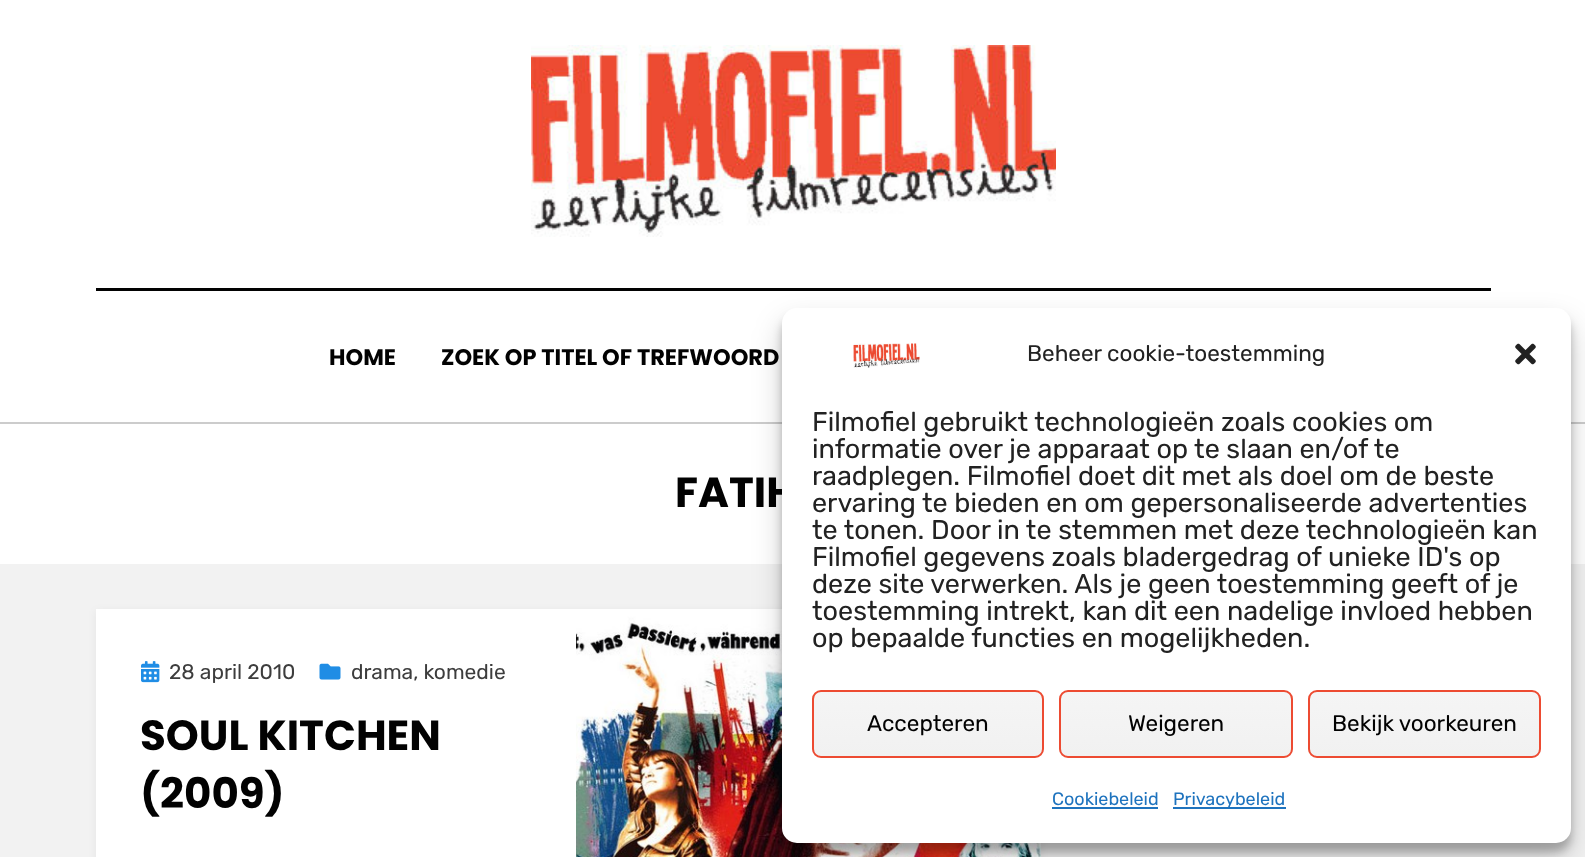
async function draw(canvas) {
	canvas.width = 1585;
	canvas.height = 857;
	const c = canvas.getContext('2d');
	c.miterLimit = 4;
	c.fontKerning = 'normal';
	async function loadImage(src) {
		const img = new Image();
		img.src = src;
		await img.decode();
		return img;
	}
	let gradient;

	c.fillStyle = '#f2f2f2';
	c.fillRect(0, 0, 1585, 857);
	c.fillStyle = '#fff';
	c.fillRect(0, 0, 1585, 422);
	c.drawImage(await loadImage('img1.png'), 531, 45, 525, 192);
	c.fillStyle = '#020202';
	c.fillRect(96, 288, 1395, 3);
	c.font = 'bold 22.5px Poppins';
	c.fillText('HOME', 329, 365);
	c.fillText('ZOEK OP TITEL OF TREFWOORD', 441, 365);
	c.fillStyle = '#fff';
	c.fillRect(0, 424, 1585, 140);
	c.fillStyle = '#ccc';
	c.fillRect(0, 422, 1585, 2);
	c.font = 'bold 42px Poppins';
	c.fillStyle = '#020202';
	c.fillText('FATIH', 675, 507);
	c.fillStyle = '#0000010d';
	c.filter = 'blur(4px)';
	c.beginPath();
	c.rect(96, 611, 945, 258);
	c.fill();
	c.filter = 'none';
	c.fillStyle = '#fff';
	c.fillRect(96, 609, 480, 248);
	c.drawImage(await loadImage('img2.png'), 141, 661, 19, 22);
	c.font = '21px Rubik';
	c.fillStyle = '#3d3d3d';
	c.fillText('28 april 2010', 169, 679);
	c.drawImage(await loadImage('img3.png'), 319, 663, 22, 17);
	c.fillText('drama, komedie', 351, 679);
	c.font = 'bold 42px Poppins';
	c.fillStyle = '#020202';
	c.fillText('SOUL KITCHEN', 140, 750);
	c.fillText('(2009)', 140, 808);
	c.drawImage(await loadImage('img4.png'), 576, 609, 465, 248);
	c.fillStyle = '#0000003b';
	c.filter = 'blur(4.5px)';
	c.beginPath();
	c.roundRect(782, 317, 789, 535, 15);
	c.fill();
	c.filter = 'none';
	c.fillStyle = '#00000030';
	c.filter = 'blur(15px)';
	c.beginPath();
	c.roundRect(782, 323, 789, 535, 15);
	c.fill();
	c.filter = 'none';
	c.fillStyle = '#fff';
	c.beginPath();
	c.roundRect(782, 308, 789, 535, 15);
	c.fill();
	c.drawImage(await loadImage('img5.png'), 853, 343, 67, 25);
	c.font = '22.5px Rubik';
	c.fillStyle = '#222';
	c.fillText('Beheer cookie-toestemming', 1027, 361);
	c.drawImage(await loadImage('img6.png'), 1515, 343, 21, 22);
	c.font = '27px Rubik';
	for (const [text, x, y] of [
		['Filmofiel gebruikt technologieën zoals cookies om', 812, 431],
		['informatie over je apparaat op te slaan en/of te', 812, 458],
		['raadplegen. Filmofiel doet dit met als doel om de beste', 812, 485],
		['ervaring te bieden en om gepersonaliseerde advertenties', 812, 512],
		['te tonen. Door in te stemmen met deze technologieën kan', 812, 539],
		['Filmofiel gegevens zoals bladergedrag of unieke ID\'s op', 812, 566],
		['deze site verwerken. Als je geen toestemming geeft of je', 812, 593],
		['toestemming intrekt, kan dit een nadelige invloed hebben', 812, 620],
		['op bepaalde functies en mogelijkheden.', 812, 647],
	]) {
		c.fillText(text, x, y);
	}
	c.save();
	c.beginPath();
	c.roundRect(812, 690, 232, 68, 9);
	c.clip();
	gradient = c.createLinearGradient(928, 692, 928, 756);
	gradient.addColorStop(0, '#f5f5f5');
	gradient.addColorStop(1, '#f1f1f1');
	c.fillStyle = gradient;
	c.fillRect(812, 692, 232, 64);
	c.restore();
	c.beginPath();
	c.roundRect(813, 691, 230, 66, 8);
	c.strokeStyle = '#ed4b32';
	c.lineWidth = 2;
	c.stroke();
	c.font = '22.5px Rubik';
	c.fillStyle = '#020202';
	c.fillText('Accepteren', 867, 731);
	c.save();
	c.beginPath();
	c.roundRect(1059, 690, 234, 68, 9);
	c.clip();
	gradient = c.createLinearGradient(1176, 692, 1176, 756);
	gradient.addColorStop(0, '#f5f5f5');
	gradient.addColorStop(1, '#f1f1f1');
	c.fillStyle = gradient;
	c.fillRect(1059, 692, 234, 64);
	c.restore();
	c.beginPath();
	c.roundRect(1060, 691, 232, 66, 8);
	c.stroke();
	c.fillText('Weigeren', 1128, 731);
	c.save();
	c.beginPath();
	c.roundRect(1308, 690, 233, 68, 9);
	c.clip();
	gradient = c.createLinearGradient(1424, 692, 1424, 756);
	gradient.addColorStop(0, '#f5f5f5');
	gradient.addColorStop(1, '#f1f1f1');
	c.fillStyle = gradient;
	c.fillRect(1308, 692, 233, 64);
	c.restore();
	c.beginPath();
	c.roundRect(1309, 691, 231, 66, 8);
	c.stroke();
	c.fillText('Bekijk voorkeuren', 1332, 731);
	c.font = '18px Rubik';
	c.fillStyle = '#1e73be';
	c.fillText('Cookiebeleid', 1052, 805);
	c.fillRect(1052, 807, 106, 2);
	c.fillRect(1173, 807, 113, 2);
	c.fillText('Privacybeleid', 1173, 805);
}

draw(document.querySelector('canvas'));
